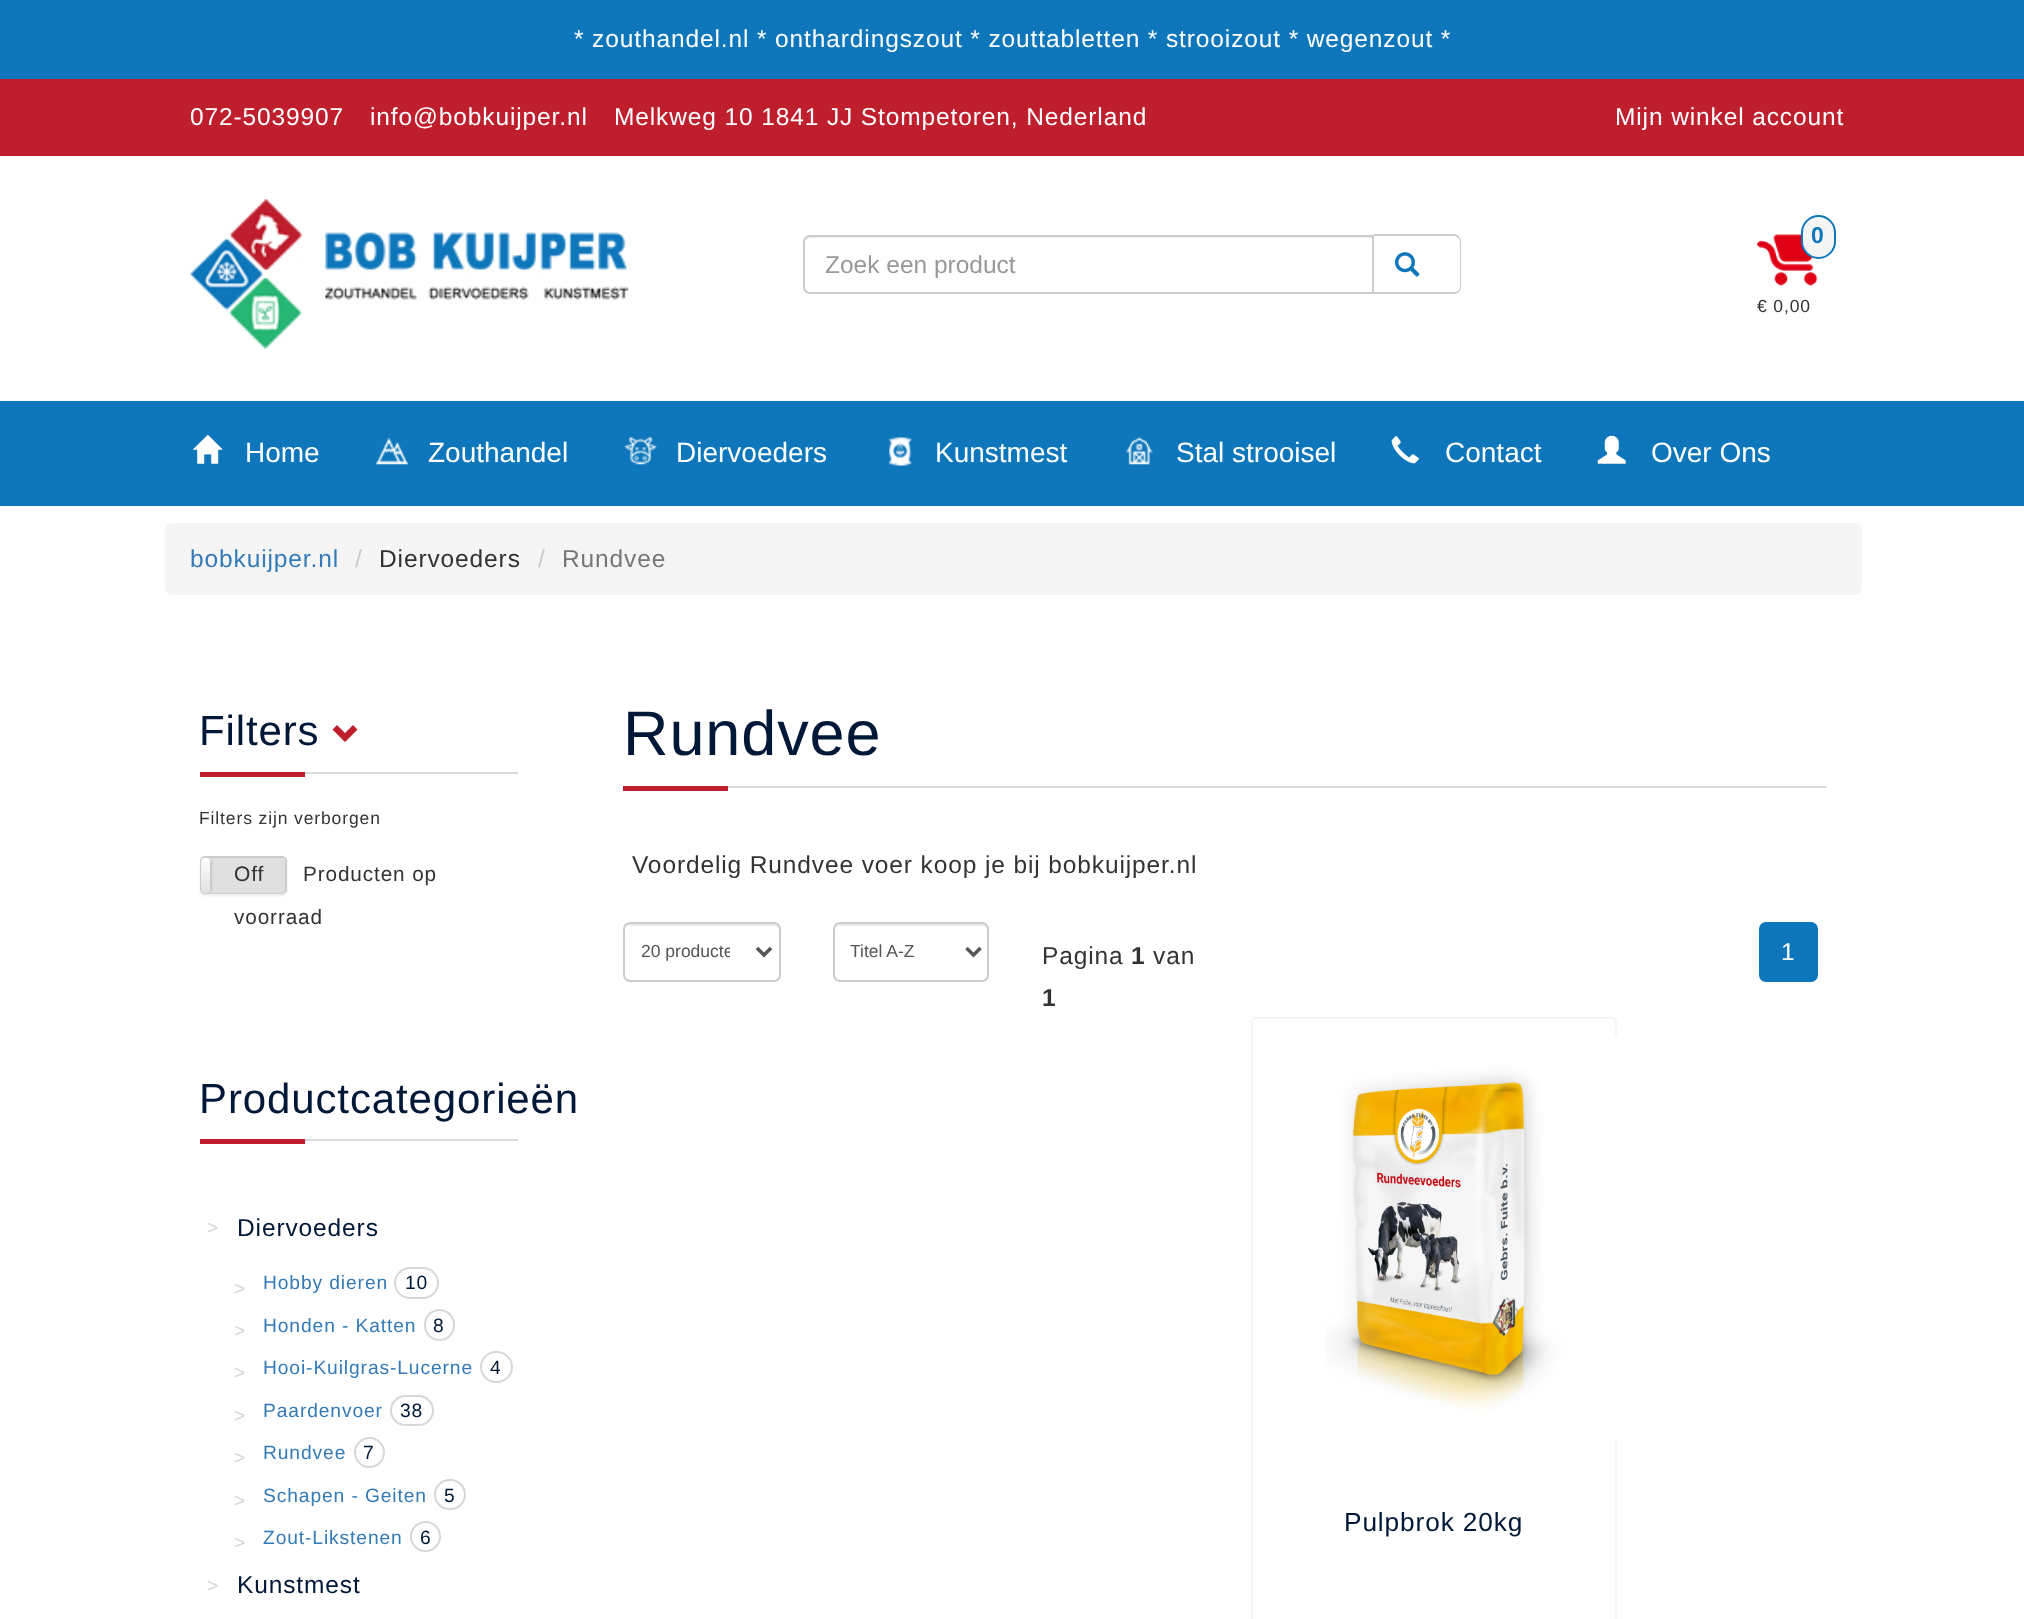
async function draw(canvas) {
	canvas.width = 2024;
	canvas.height = 1619;
	const c = canvas.getContext('2d');
	c.miterLimit = 4;
	c.fontKerning = 'normal';
	async function loadImage(src) {
		const img = new Image();
		img.src = src;
		await img.decode();
		return img;
	}
	let gradient;

	c.fillStyle = '#fff';
	c.fillRect(0, 0, 2024, 1619);
	c.fillStyle = '#0e77bb';
	c.fillRect(0, 0, 2024, 79);
	c.letterSpacing = '0.88px';
	c.font = '24.5px Liberation Sans';
	c.fillStyle = '#fff';
	c.fillText('* zouthandel.nl * onthardingszout * zouttabletten * strooizout * wegenzout *', 574, 47);
	c.fillStyle = '#bf1e2d';
	c.fillRect(0, 79, 2024, 77);
	c.fillStyle = '#fff';
	for (const [text, x, y] of [
		['072-5039907', 190, 125],
		['info@bobkuijper.nl', 370, 125],
		['Melkweg 10 1841 JJ Stompetoren, Nederland', 614, 125],
		['Mijn winkel account', 1615, 125],
	]) {
		c.fillText(text, x, y);
	}
	c.drawImage(await loadImage('img1.png'), 190, 199, 439, 150);
	c.fillStyle = '#ececec';
	c.beginPath();
	c.moveTo(810, 238);
	c.lineTo(1372, 238);
	c.lineTo(1372, 236);
	c.lineTo(810, 236);
	c.bezierCurveTo(806, 236, 805, 240, 805, 243);
	c.bezierCurveTo(805, 240, 807, 238, 810, 238);
	c.closePath();
	c.fill();
	c.beginPath();
	c.roundRect(804, 236, 569, 57, [6, 0, 0, 6]);
	c.strokeStyle = '#ccc';
	c.lineWidth = 2;
	c.stroke();
	c.save();
	c.beginPath();
	c.rect(826, 250, 525, 28);
	c.clip();
	c.letterSpacing = '0px';
	c.fillStyle = '#999';
	c.fillText('Zoek een product', 825, 273);
	c.restore();
	c.fillStyle = '#ccc';
	c.beginPath();
	c.moveTo(1374, 234);
	c.lineTo(1454, 234);
	c.bezierCurveTo(1458, 234, 1461, 238, 1461, 242);
	c.lineTo(1461, 287);
	c.bezierCurveTo(1461, 291, 1458, 294, 1454, 294);
	c.lineTo(1374, 294);
	c.closePath();
	c.moveTo(1374, 236);
	c.lineTo(1454, 236);
	c.bezierCurveTo(1457, 236, 1460, 239, 1460, 242);
	c.lineTo(1460, 287);
	c.bezierCurveTo(1460, 290, 1457, 292, 1454, 292);
	c.lineTo(1374, 292);
	c.closePath();
	c.fill('evenodd');
	c.drawImage(await loadImage('img2.png'), 1394, 252, 26, 25);
	c.drawImage(await loadImage('img3.png'), 1757, 234, 61, 52);
	c.fillStyle = '#f5f5f5';
	c.beginPath();
	c.roundRect(1802, 216, 33, 42, 16.5);
	c.fill();
	c.strokeStyle = '#0e77bb';
	c.stroke();
	c.font = 'bold 23px Liberation Sans';
	c.fillStyle = '#0e77bb';
	c.fillText('0', 1811, 243);
	c.font = '17.5px Liberation Sans';
	c.fillStyle = '#333';
	c.fillText('€ 0,00', 1757, 312);
	c.fillStyle = '#0e77bb';
	c.fillRect(0, 401, 2024, 105);
	c.drawImage(await loadImage('img4.png'), 192, 435, 31, 29);
	c.letterSpacing = '0px';
	c.font = '28px Liberation Sans';
	c.fillStyle = '#fff';
	c.fillText('Home', 245, 462);
	c.drawImage(await loadImage('img5.png'), 376, 437, 32, 28);
	c.fillText('Zouthandel', 428, 462);
	c.drawImage(await loadImage('img6.png'), 624, 437, 33, 28);
	c.fillText('Diervoeders', 676, 462);
	c.drawImage(await loadImage('img7.png'), 889, 437, 23, 29);
	c.fillText('Kunstmest', 935, 462);
	c.drawImage(await loadImage('img8.png'), 1126, 437, 27, 28);
	c.fillText('Stal strooisel', 1176, 462);
	c.drawImage(await loadImage('img9.png'), 1391, 436, 28, 28);
	c.fillText('Contact', 1445, 462);
	c.drawImage(await loadImage('img10.png'), 1597, 435, 29, 29);
	c.fillText('Over Ons', 1651, 462);
	c.fillStyle = '#f5f5f5';
	c.beginPath();
	c.roundRect(165, 523, 1697, 72, 7);
	c.fill();
	c.letterSpacing = '0.88px';
	c.font = '24.5px Liberation Sans';
	c.fillStyle = '#337ab7';
	c.fillText('bobkuijper.nl', 190, 567);
	c.fillStyle = '#ccc';
	c.fillText('/', 355, 567);
	c.fillStyle = '#333';
	c.fillText('Diervoeders', 379, 567);
	c.fillStyle = '#ccc';
	c.fillText('/', 538, 567);
	c.fillStyle = '#777';
	c.fillText('Rundvee', 562, 567);
	c.fillStyle = '#dadada';
	c.fillRect(305, 772, 213, 2);
	c.font = '42px Liberation Sans';
	c.fillStyle = '#001837';
	c.fillText('Filters', 199, 745);
	c.fillStyle = '#bf1e2d';
	c.beginPath();
	c.moveTo(357.5, 729.5);
	c.lineTo(345, 742);
	c.lineTo(332.5, 729.5);
	c.lineTo(337, 725);
	c.lineTo(345, 733);
	c.lineTo(353, 725);
	c.closePath();
	c.fill();
	c.fillRect(200, 772, 105, 5);
	c.font = '17.5px Liberation Sans';
	c.fillStyle = '#333';
	c.fillText('Filters zijn verborgen', 199, 824);
	c.fillStyle = '#00000012';
	c.filter = 'blur(1px)';
	c.beginPath();
	c.roundRect(200, 858, 87, 38, 5);
	c.fill();
	c.filter = 'none';
	c.save();
	c.beginPath();
	c.roundRect(200, 856, 87, 38, 5);
	c.clip();
	gradient = c.createLinearGradient(243, 858, 243, 893);
	gradient.addColorStop(0, '#fff');
	gradient.addColorStop(1, '#e0e0e0');
	c.fillStyle = gradient;
	c.fillRect(200, 858, 87, 35);
	c.restore();
	c.beginPath();
	c.roundRect(201, 857, 85, 36, 4);
	c.strokeStyle = '#ccc';
	c.stroke();
	c.fillStyle = '#e0e0e0';
	c.beginPath();
	c.roundRect(201, 858, 84, 35, 4);
	c.fill();
	c.save();
	c.beginPath();
	c.roundRect(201, 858, 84, 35, 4);
	c.clip();
	c.fillStyle = '#00000012';
	c.filter = 'blur(1px)';
	c.beginPath();
	c.roundRect(191, 859, 21, 35, 5);
	c.fill();
	c.filter = 'none';
	c.restore();
	c.fillStyle = '#fff';
	c.beginPath();
	c.moveTo(205, 858);
	c.lineTo(208, 858);
	c.bezierCurveTo(209, 859, 210, 861, 210, 863);
	c.lineTo(210, 887);
	c.bezierCurveTo(210, 890, 208.5, 892.5, 206.5, 892.5);
	c.lineTo(203, 892.5);
	c.bezierCurveTo(202, 892, 201, 890.5, 201, 889);
	c.lineTo(201, 862);
	c.bezierCurveTo(201, 860, 203, 858, 205, 858);
	c.closePath();
	c.fill();
	c.drawImage(await loadImage('img11.png'), 201, 858, 9, 35);
	c.fillStyle = '#ccc';
	c.fillRect(210, 861, 2, 30);
	c.font = '21px Liberation Sans';
	c.fillStyle = '#333';
	c.fillText('Off', 234, 881);
	c.font = '20.75px Liberation Sans';
	c.fillText('Producten op', 303, 881);
	c.fillText('voorraad', 234, 924);
	c.fillStyle = '#dadada';
	c.fillRect(305, 1139, 213, 2);
	c.font = '42px Liberation Sans';
	c.fillStyle = '#001837';
	c.fillText('Productcategorieën', 199, 1113);
	c.fillStyle = '#bf1e2d';
	c.fillRect(200, 1139, 105, 5);
	c.font = '19.25px Liberation Sans';
	c.fillStyle = '#d7d5d7';
	c.fillText('>', 207, 1234);
	c.font = '24.5px Liberation Sans';
	c.fillStyle = '#001837';
	c.fillText('Diervoeders', 237, 1236);
	c.font = '19.25px Liberation Sans';
	c.fillStyle = '#d7d5d7';
	c.fillText('>', 234, 1295);
	c.fillStyle = '#337ab7';
	c.fillText('Hobby dieren', 263, 1289);
	c.beginPath();
	c.roundRect(395, 1268, 43, 30, 15);
	c.strokeStyle = '#d7d7d7';
	c.stroke();
	c.fillStyle = '#001837';
	c.fillText('10', 405, 1289);
	c.fillStyle = '#d7d5d7';
	c.fillText('>', 234, 1337);
	c.fillStyle = '#337ab7';
	c.fillText('Honden - Katten', 263, 1332);
	c.beginPath();
	c.roundRect(425, 1310, 29, 30, 14.5);
	c.stroke();
	c.fillStyle = '#001837';
	c.fillText('8', 433, 1332);
	c.fillStyle = '#d7d5d7';
	c.fillText('>', 234, 1379);
	c.fillStyle = '#337ab7';
	c.fillText('Hooi-Kuilgras-Lucerne', 263, 1374);
	c.beginPath();
	c.roundRect(481, 1352, 31, 30, 15);
	c.stroke();
	c.fillStyle = '#001837';
	c.fillText('4', 490, 1374);
	c.fillStyle = '#d7d5d7';
	c.fillText('>', 234, 1422);
	c.fillStyle = '#337ab7';
	c.fillText('Paardenvoer', 263, 1417);
	c.beginPath();
	c.roundRect(391, 1396, 42, 29, 14.5);
	c.stroke();
	c.fillStyle = '#001837';
	c.fillText('38', 400, 1417);
	c.fillStyle = '#d7d5d7';
	c.fillText('>', 234, 1464);
	c.fillStyle = '#337ab7';
	c.fillText('Rundvee', 263, 1459);
	c.beginPath();
	c.arc(369.5, 1452.5, 14.5, 0, 2 * Math.PI);
	c.stroke();
	c.fillStyle = '#001837';
	c.fillText('7', 363, 1459);
	c.fillStyle = '#d7d5d7';
	c.fillText('>', 234, 1507);
	c.fillStyle = '#337ab7';
	c.fillText('Schapen - Geiten', 263, 1502);
	c.beginPath();
	c.roundRect(435, 1480, 30, 29, 14.5);
	c.stroke();
	c.fillStyle = '#001837';
	c.fillText('5', 444, 1502);
	c.fillStyle = '#d7d5d7';
	c.fillText('>', 234, 1549);
	c.fillStyle = '#337ab7';
	c.fillText('Zout-Likstenen', 263, 1544);
	c.beginPath();
	c.arc(425.5, 1536.5, 14.5, 0, 2 * Math.PI);
	c.stroke();
	c.fillStyle = '#001837';
	c.fillText('6', 420, 1544);
	c.fillStyle = '#d7d5d7';
	c.fillText('>', 207, 1592);
	c.font = '24.5px Liberation Sans';
	c.fillStyle = '#001837';
	c.fillText('Kunstmest', 237, 1593);
	c.fillStyle = '#dadada';
	c.fillRect(728, 786, 1099, 2);
	c.font = '63px Liberation Sans';
	c.fillStyle = '#001837';
	c.fillText('Rundvee', 623, 755);
	c.fillStyle = '#bf1e2d';
	c.fillRect(623, 786, 105, 5);
	c.font = '24.5px Liberation Sans';
	c.fillStyle = '#333';
	c.fillText('Voordelig Rundvee voer koop je bij bobkuijper.nl', 632, 873);
	c.fillStyle = '#ececec';
	c.beginPath();
	c.moveTo(630, 926);
	c.lineTo(774, 926);
	c.bezierCurveTo(776, 926, 779, 928, 779, 931);
	c.lineTo(779, 929);
	c.bezierCurveTo(779, 926, 777, 924, 774, 924);
	c.lineTo(630, 924);
	c.bezierCurveTo(627, 924, 625, 926, 625, 929);
	c.lineTo(625, 931);
	c.bezierCurveTo(625, 928, 627, 926, 630, 926);
	c.closePath();
	c.fill();
	c.beginPath();
	c.roundRect(624, 923, 156, 58, 6);
	c.strokeStyle = '#ccc';
	c.stroke();
	c.beginPath();
	c.moveTo(757, 948);
	c.lineTo(764, 955);
	c.lineTo(771, 948);
	c.strokeStyle = '#555';
	c.lineWidth = 3.5;
	c.stroke();
	c.save();
	c.beginPath();
	c.rect(641, 940, 89, 23);
	c.clip();
	c.letterSpacing = '0px';
	c.font = '17.5px Liberation Sans';
	c.fillStyle = '#555';
	c.fillText('20 producte', 641, 957);
	c.restore();
	c.beginPath();
	c.moveTo(840, 926);
	c.lineTo(982, 926);
	c.bezierCurveTo(985, 926, 987, 928, 987, 931);
	c.lineTo(987, 929);
	c.bezierCurveTo(987, 926, 985, 924, 982, 924);
	c.lineTo(840, 924);
	c.bezierCurveTo(837, 924, 835, 926, 835, 929);
	c.lineTo(835, 931);
	c.bezierCurveTo(835, 928, 837, 926, 840, 926);
	c.closePath();
	c.fill();
	c.beginPath();
	c.roundRect(834, 923, 154, 58, 6);
	c.strokeStyle = '#ccc';
	c.lineWidth = 2;
	c.stroke();
	c.beginPath();
	c.moveTo(966.5, 948);
	c.lineTo(973.5, 955);
	c.lineTo(980.5, 948);
	c.strokeStyle = '#555';
	c.lineWidth = 3.5;
	c.stroke();
	c.letterSpacing = '0px';
	c.font = '17.5px Liberation Sans';
	c.fillStyle = '#555';
	c.fillText('Titel A-Z', 850, 957);
	c.letterSpacing = '0.88px';
	c.font = '24.5px Liberation Sans';
	c.fillStyle = '#333';
	c.fillText('Pagina', 1042, 964);
	c.font = 'bold 24.5px Liberation Sans';
	c.fillText('1', 1131, 964);
	c.font = '24.5px Liberation Sans';
	c.fillText('van', 1153, 964);
	c.font = 'bold 24.5px Liberation Sans';
	c.fillText('1', 1042, 1006);
	c.fillStyle = '#0e77bb';
	c.beginPath();
	c.roundRect(1760, 923, 57, 58, 6);
	c.fill();
	c.strokeStyle = '#0e77bb';
	c.lineWidth = 2;
	c.stroke();
	c.font = '24.5px Liberation Sans';
	c.fillStyle = '#fff';
	c.fillText('1', 1781, 960);
	c.beginPath();
	c.roundRect(1252, 1018, 364, 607, 4);
	c.strokeStyle = '#f5f5f5';
	c.stroke();
	c.drawImage(await loadImage('img12.png'), 1325, 1036, 292, 403);
	c.font = '26.25px Liberation Sans';
	c.fillStyle = '#001837';
	c.fillText('Pulpbrok 20kg', 1344, 1531);
}

draw(document.querySelector('canvas'));
